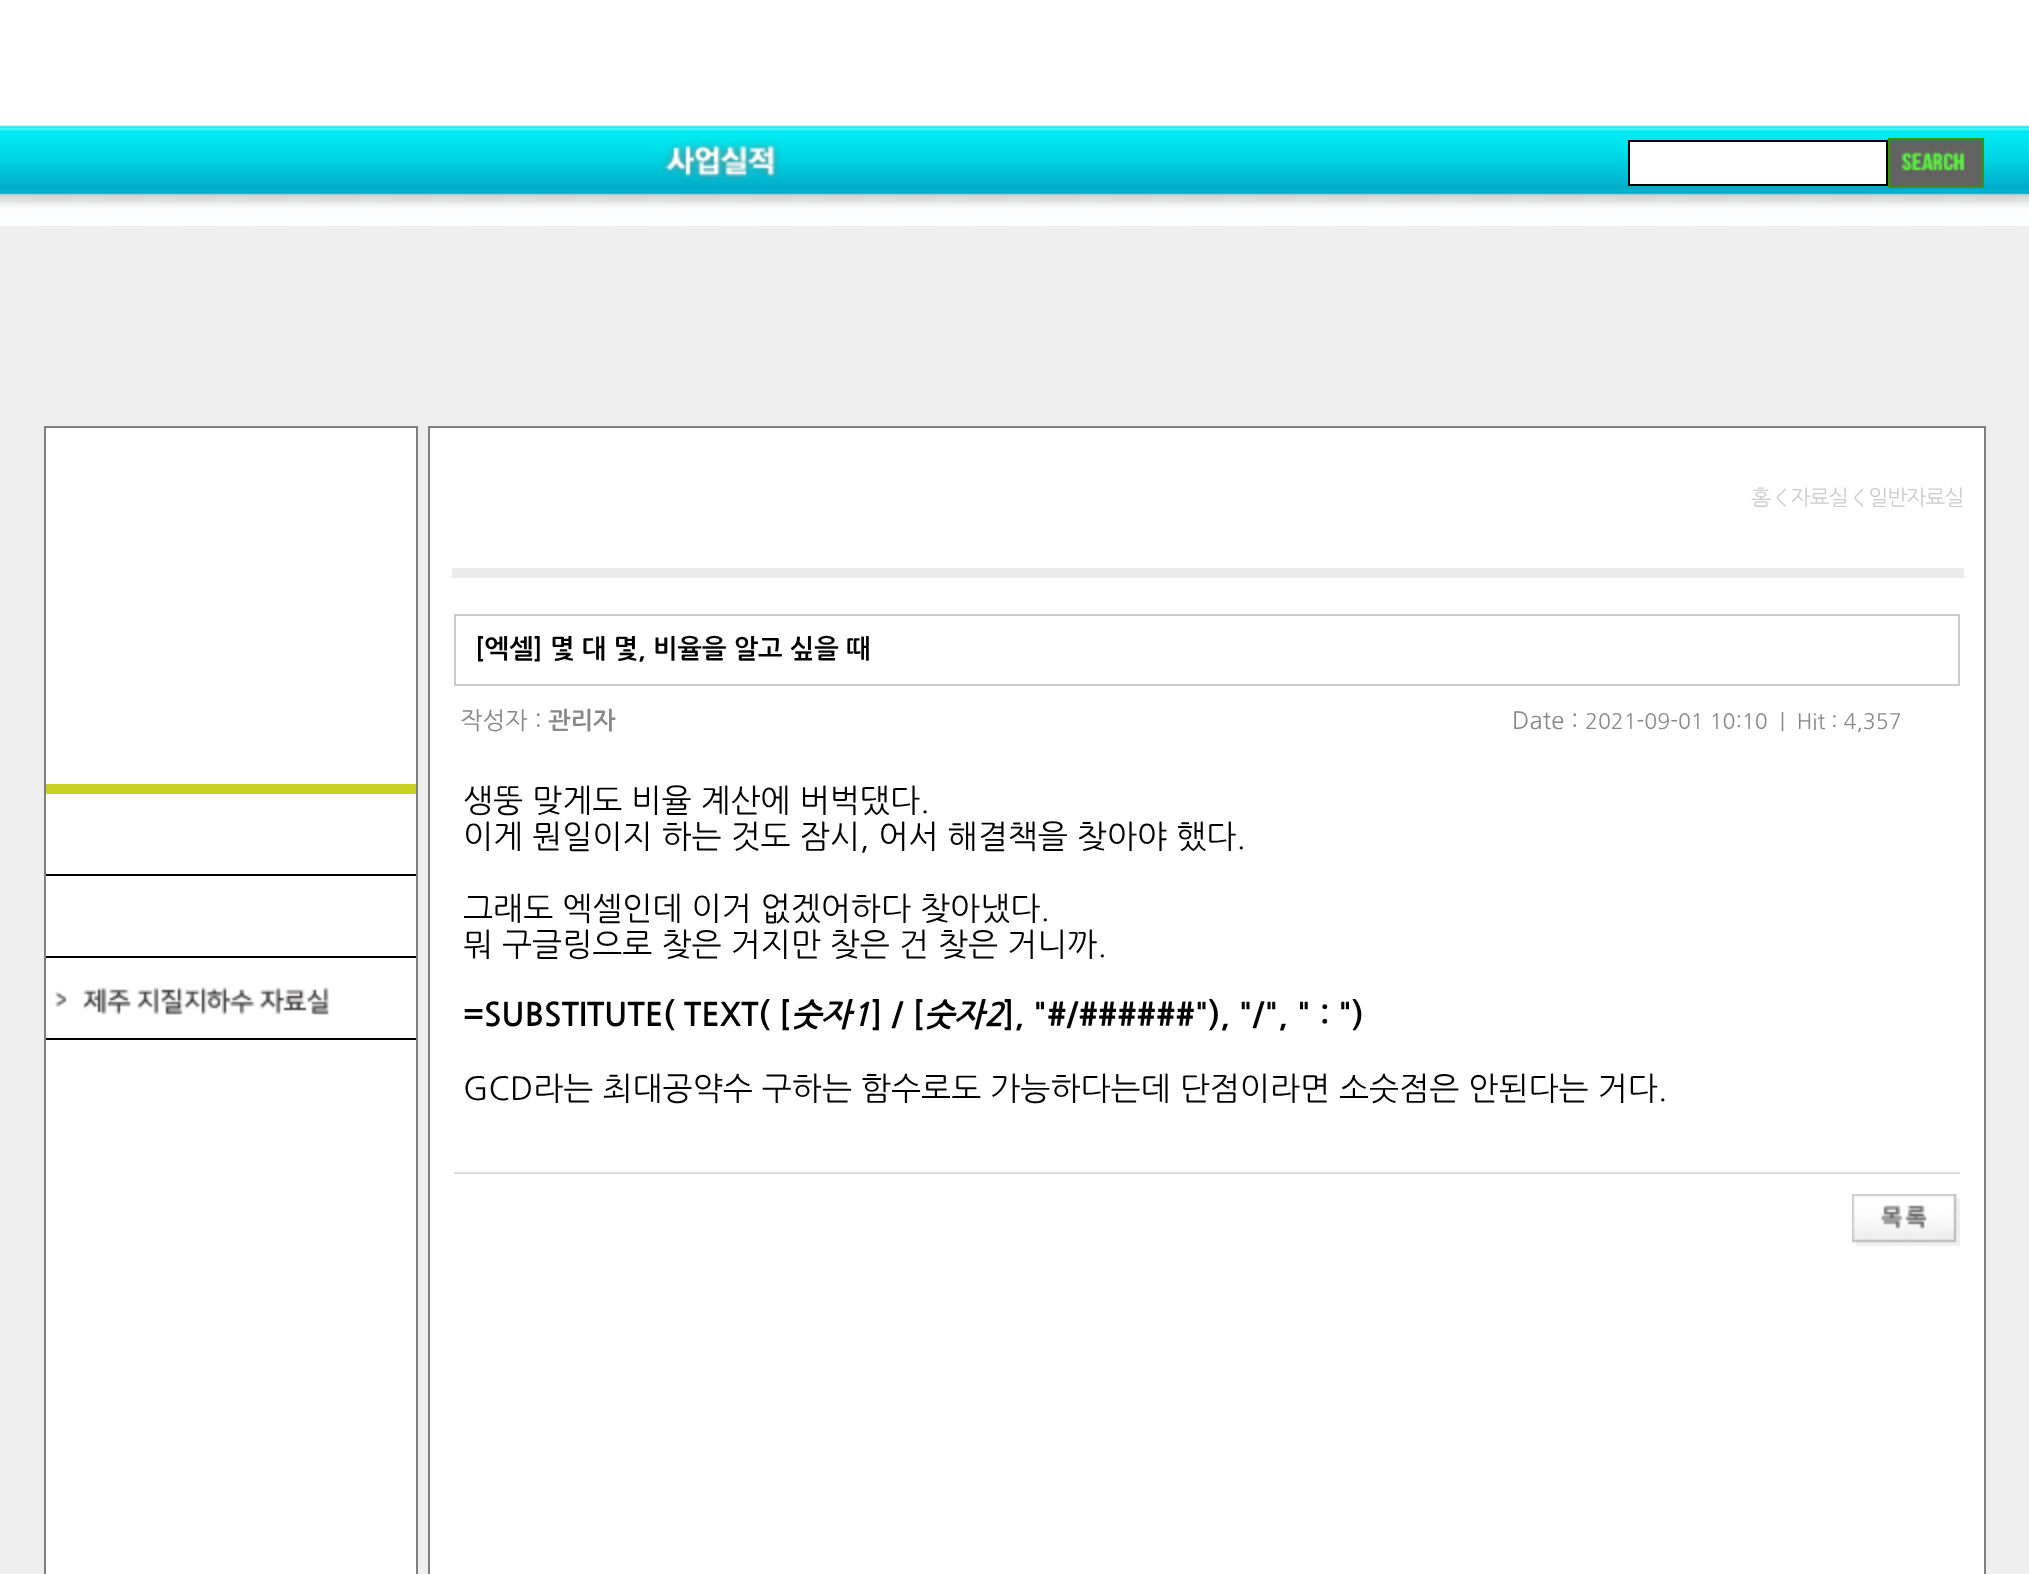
async function draw(canvas) {
	canvas.width = 2029;
	canvas.height = 1574;
	const c = canvas.getContext('2d');
	c.miterLimit = 4;
	c.fontKerning = 'normal';
	async function loadImage(src) {
		const img = new Image();
		img.src = src;
		await img.decode();
		return img;
	}

	c.fillStyle = '#efefef';
	c.fillRect(0, 0, 2029, 1574);
	c.fillStyle = '#fff';
	c.fillRect(0, 0, 2029, 120);
	c.drawImage(await loadImage('img1.png'), 0, 120, 2029, 106);
	c.drawImage(await loadImage('img2.png'), 662, 141, 119, 41);
	c.beginPath();
	c.rect(1629, 141, 258, 44);
	c.fill();
	c.strokeStyle = '#000';
	c.lineWidth = 2;
	c.stroke();
	c.drawImage(await loadImage('img3.png'), 1888, 138, 96, 50);
	c.strokeStyle = '#808080';
	c.strokeRect(45, 427, 372, 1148);
	for (const [x, y, w, h, color] of [
		[46, 428, 370, 356, '#fff'],
		[46, 784, 370, 10, '#c8d022'],
		[46, 794, 370, 80, '#fff'],
		[46, 874, 370, 2, '#000'],
		[46, 876, 370, 80, '#fff'],
		[46, 956, 370, 2, '#000'],
		[46, 958, 370, 80, '#fff'],
	]) {
		c.fillStyle = color;
		c.fillRect(x, y, w, h);
	}
	c.drawImage(await loadImage('img4.png'), 55, 987, 274, 28);
	c.fillStyle = '#000';
	c.fillRect(46, 1038, 370, 2);
	c.fillStyle = '#fff';
	c.fillRect(46, 1040, 370, 534);
	c.beginPath();
	c.rect(429, 427, 1556, 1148);
	c.fill();
	c.stroke();
	c.letterSpacing = '-1px';
	c.font = '21.3px NanumGothic';
	c.fillStyle = '#ccc';
	c.fillText('홈 < 자료실 < 일반자료실', 1751, 505);
	c.fillStyle = '#ebebeb';
	c.fillRect(452, 568, 1512, 10);
	c.strokeStyle = '#ccc';
	c.strokeRect(455, 615, 1504, 70);
	c.letterSpacing = '0px';
	c.font = 'bold 26px NanumGothic';
	c.fillStyle = '#000';
	c.fillText('[엑셀] 몇 대 몇, 비율을 알고 싶을 때', 475, 658);
	c.font = '24px NanumGothic';
	c.fillStyle = '#888';
	c.fillText('작성자 :', 460, 729);
	c.font = 'bold 24px NanumGothic';
	c.fillText('관리자', 548, 729);
	c.font = '24px NanumGothic';
	c.fillText('Date :', 1512, 729);
	c.font = '21.3px NanumGothic';
	c.fillText('2021-09-01 10:10  |  Hit : 4,357', 1585, 729);
	c.font = '32px NanumGothic';
	c.fillStyle = '#000';
	for (const [text, x, y] of [
		['생뚱 맞게도 비율 계산에 버벅댔다.', 463, 812],
		['이게 뭔일이지 하는 것도 잠시, 어서 해결책을 찾아야 했다.', 463, 848],
		['그래도 엑셀인데 이거 없겠어하다 찾아냈다.', 463, 920],
		['뭐 구글링으로 찾은 거지만 찾은 건 찾은 거니까.', 463, 956],
	]) {
		c.fillText(text, x, y);
	}
	c.font = 'bold 32px NanumGothic';
	c.fillText('=SUBSTITUTE( TEXT( [', 463, 1026);
	c.font = 'italic bold 32px NanumGothic';
	c.fillText('숫자1', 791, 1026);
	c.font = 'bold 32px NanumGothic';
	c.fillText('] / [', 871, 1026);
	c.font = 'italic bold 32px NanumGothic';
	c.fillText('숫자2', 924, 1026);
	c.font = 'bold 32px NanumGothic';
	c.fillText('], "#/######"), "/", " : ")', 1003, 1026);
	c.font = '32px NanumGothic';
	c.fillText('GCD라는 최대공약수 구하는 함수로도 가능하다는데 단점이라면 소숫점은 안된다는 거다.', 463, 1100);
	c.fillStyle = '#ddd';
	c.fillRect(454, 1172, 1506, 2);
	c.drawImage(await loadImage('img5.png'), 1852, 1194, 108, 52);
}

draw(document.querySelector('canvas'));
